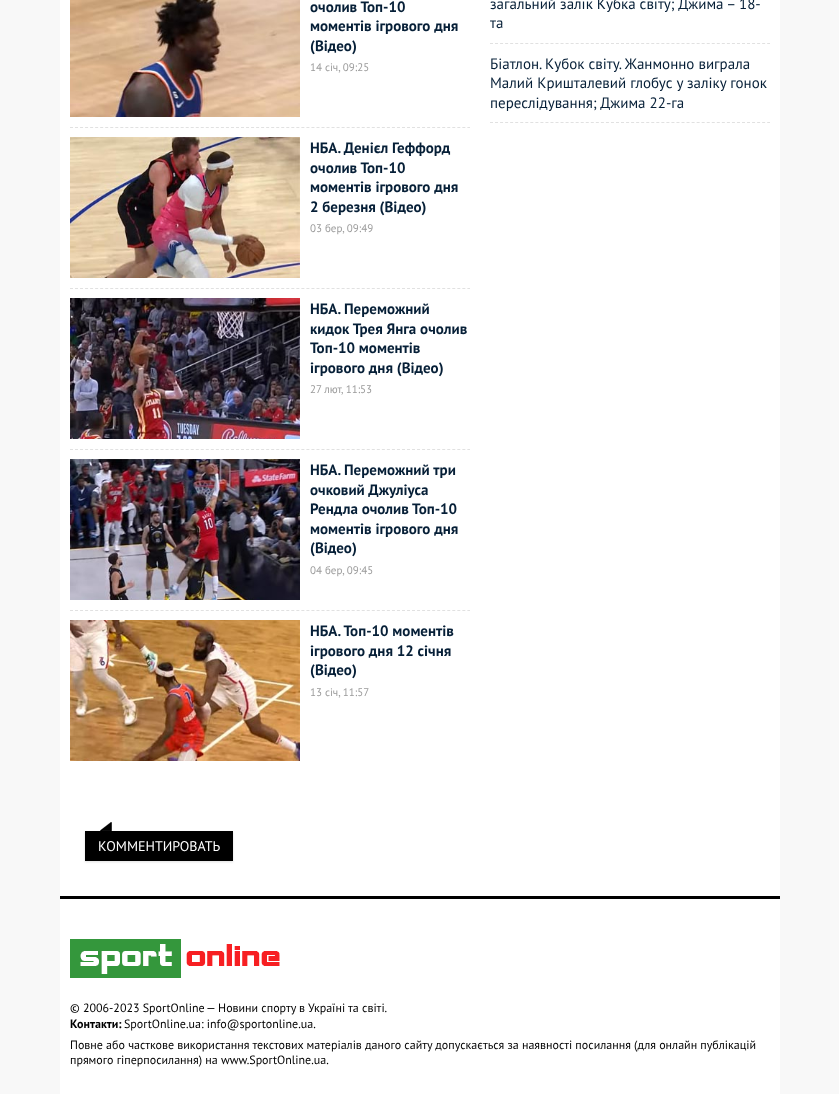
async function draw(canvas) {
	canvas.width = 839;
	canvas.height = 1094;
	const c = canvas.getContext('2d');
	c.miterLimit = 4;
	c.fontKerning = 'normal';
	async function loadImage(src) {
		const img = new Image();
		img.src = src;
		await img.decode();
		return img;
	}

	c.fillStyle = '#f8f8f8';
	c.fillRect(0, 0, 839, 1094);
	c.fillStyle = '#fff';
	c.fillRect(60, 0, 720, 896);
	c.beginPath();
	c.moveTo(70, 127.5);
	c.lineTo(470, 127.5);
	c.strokeStyle = '#e1e1e1';
	c.setLineDash([3, 2.03]);
	c.stroke();
	c.drawImage(await loadImage('img1.png'), 70, 0, 230, 117);
	c.font = 'bold 15px PT Sans';
	c.fillStyle = '#061f37';
	for (const [text, x, y] of [
		['очолив Топ-10', 310, 12],
		['моментів ігрового дня', 310, 31],
		['(Відео)', 310, 51],
	]) {
		c.fillText(text, x, y);
	}
	c.font = '11px PT Sans';
	c.fillStyle = '#9b9b9b';
	c.fillText('14 січ, 09:25', 310, 71);
	c.beginPath();
	c.moveTo(70, 288.5);
	c.lineTo(470, 288.5);
	c.stroke();
	c.drawImage(await loadImage('img2.png'), 70, 137, 230, 141);
	c.font = 'bold 15px PT Sans';
	c.fillStyle = '#061f37';
	for (const [text, x, y] of [
		['НБА. Денієл Геффорд', 310, 153],
		['очолив Топ-10', 310, 173],
		['моментів ігрового дня', 310, 192],
		['2 березня (Відео)', 310, 212],
	]) {
		c.fillText(text, x, y);
	}
	c.font = '11px PT Sans';
	c.fillStyle = '#9b9b9b';
	c.fillText('03 бер, 09:49', 310, 232);
	c.beginPath();
	c.moveTo(70, 449.5);
	c.lineTo(470, 449.5);
	c.stroke();
	c.drawImage(await loadImage('img3.png'), 70, 298, 230, 141);
	c.font = 'bold 15px PT Sans';
	c.fillStyle = '#061f37';
	for (const [text, x, y] of [
		['НБА. Переможний', 310, 314],
		['кидок Трея Янга очолив', 310, 334],
		['Топ-10 моментів', 310, 353],
		['ігрового дня (Відео)', 310, 373],
	]) {
		c.fillText(text, x, y);
	}
	c.font = '11px PT Sans';
	c.fillStyle = '#9b9b9b';
	c.fillText('27 лют, 11:53', 310, 393);
	c.beginPath();
	c.moveTo(70, 610.5);
	c.lineTo(470, 610.5);
	c.stroke();
	c.drawImage(await loadImage('img4.png'), 70, 459, 230, 141);
	c.font = 'bold 15px PT Sans';
	c.fillStyle = '#061f37';
	for (const [text, x, y] of [
		['НБА. Переможний три', 310, 475],
		['очковий Джуліуса', 310, 495],
		['Рендла очолив Топ-10', 310, 514],
		['моментів ігрового дня', 310, 534],
		['(Відео)', 310, 553],
	]) {
		c.fillText(text, x, y);
	}
	c.font = '11px PT Sans';
	c.fillStyle = '#9b9b9b';
	c.fillText('04 бер, 09:45', 310, 574);
	c.drawImage(await loadImage('img5.png'), 70, 620, 230, 141);
	c.font = 'bold 15px PT Sans';
	c.fillStyle = '#061f37';
	for (const [text, x, y] of [
		['НБА. Топ-10 моментів', 310, 636],
		['ігрового дня 12 січня', 310, 656],
		['(Відео)', 310, 675],
	]) {
		c.fillText(text, x, y);
	}
	c.font = '11px PT Sans';
	c.fillStyle = '#9b9b9b';
	c.fillText('13 січ, 11:57', 310, 696);
	c.fillStyle = '#32323226';
	c.filter = 'blur(1px)';
	c.beginPath();
	c.rect(85, 832, 148, 30);
	c.fill();
	c.filter = 'none';
	c.fillStyle = '#000';
	c.fillRect(85, 831, 148, 30);
	c.drawImage(await loadImage('img6.png'), 100, 822, 12, 9);
	c.font = '14px PT Sans';
	c.fillStyle = '#fff';
	c.fillText('КОММЕНТИРОВАТЬ', 98, 851);
	c.beginPath();
	c.moveTo(490, 43.5);
	c.lineTo(770, 43.5);
	c.setLineDash([3, 2.04]);
	c.stroke();
	c.font = '15px PT Sans';
	c.fillStyle = '#061f37';
	c.fillText('загальний залік Кубка світу; Джима – 18-', 490, 9);
	c.fillText('та', 490, 28);
	c.beginPath();
	c.moveTo(490, 122.5);
	c.lineTo(770, 122.5);
	c.stroke();
	for (const [text, x, y] of [
		['Біатлон. Кубок світу. Жанмонно виграла', 490, 69],
		['Малий Кришталевий глобус у заліку гонок', 490, 88],
		['переслідування; Джима 22-га', 490, 108],
	]) {
		c.fillText(text, x, y);
	}
	c.fillStyle = '#fff';
	c.fillRect(60, 899, 720, 195);
	c.fillStyle = '#000';
	c.fillRect(60, 896, 720, 3);
	c.drawImage(await loadImage('img7.png'), 70, 939, 210, 39);
	c.font = '12px PT Sans';
	c.fillText('© 2006-2023 SportOnline', 70, 1012);
	c.fillText('— Новини спорту в Україні та світі.', 206, 1012);
	c.font = 'bold 12px PT Sans';
	c.fillText('Контакти:', 70, 1028);
	c.font = '12px PT Sans';
	for (const [text, x, y] of [
		['SportOnline.ua: info@sportonline.ua.', 124, 1028],
		['Повне або часткове використання текстових матеріалів даного сайту допускається за наявності посилання (для онлайн публікацій', 70, 1049],
		['прямого гіперпосилання) на www.SportOnline.ua.', 70, 1064],
	]) {
		c.fillText(text, x, y);
	}
}

draw(document.querySelector('canvas'));
